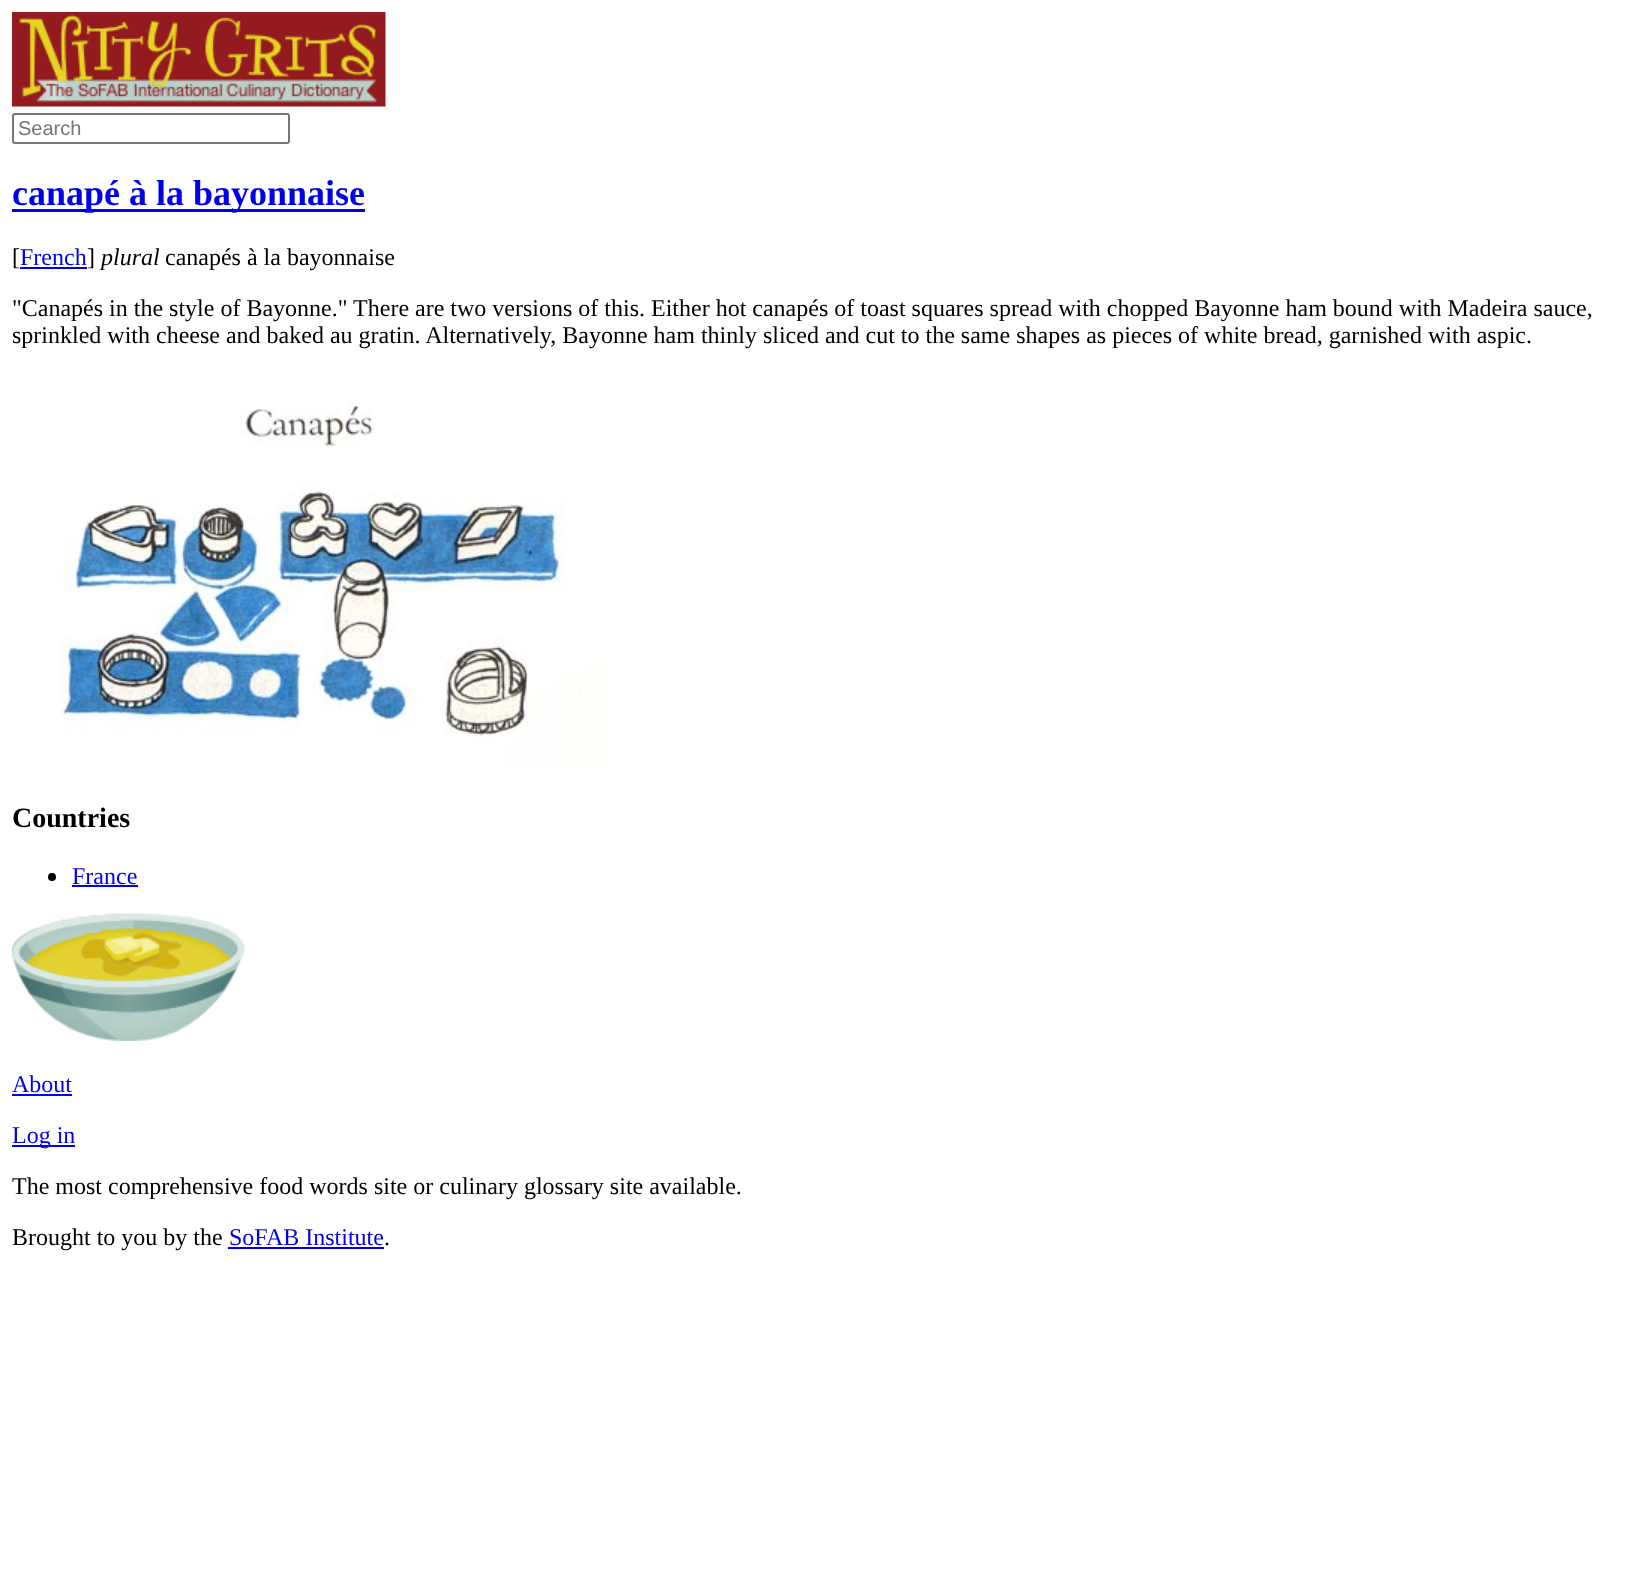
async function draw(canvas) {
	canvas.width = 1643;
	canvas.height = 1596;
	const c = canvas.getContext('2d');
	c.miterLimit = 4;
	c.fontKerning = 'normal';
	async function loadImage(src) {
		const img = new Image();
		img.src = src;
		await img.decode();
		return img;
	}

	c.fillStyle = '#fff';
	c.fillRect(0, 0, 1643, 1596);
	c.drawImage(await loadImage('img1.png'), 12, 12, 374, 95);
	c.beginPath();
	c.roundRect(13, 114, 276, 29, 2);
	c.strokeStyle = '#767676';
	c.lineWidth = 2;
	c.stroke();
	c.font = '20px Liberation Sans';
	c.fillStyle = '#757575';
	c.fillText('Search', 18, 135);
	c.fillStyle = '#00e';
	c.fillRect(12, 209, 353, 3);
	c.font = 'bold 36px Liberation Serif';
	c.fillText('canapé à la bayonnaise', 12, 205);
	c.font = '24px Liberation Serif';
	c.fillStyle = '#000';
	c.fillText('[', 12, 265);
	c.fillStyle = '#00e';
	c.fillRect(20, 267, 67, 2);
	c.fillText('French', 20, 265);
	c.fillStyle = '#000';
	c.fillText(']', 87, 265);
	c.font = 'italic 24px Liberation Serif';
	c.fillText('plural', 101, 265);
	c.font = '24px Liberation Serif';
	for (const [text, x, y] of [
		['canapés à la bayonnaise', 165, 265],
		['"Canapés in the style of Bayonne." There are two versions of this. Either hot canapés of toast squares spread with chopped Bayonne ham bound with Madeira sauce,', 12, 316],
		['sprinkled with cheese and baked au gratin. Alternatively, Bayonne ham thinly sliced and cut to the same shapes as pieces of white bread, garnished with aspic.', 12, 343],
	]) {
		c.fillText(text, x, y);
	}
	c.drawImage(await loadImage('img2.png'), 60, 399, 552, 369);
	c.font = 'bold 28px Liberation Serif';
	c.fillText('Countries', 12, 827);
	c.beginPath();
	c.arc(52, 877, 4, 0, 2 * Math.PI);
	c.fill();
	c.font = '24px Liberation Serif';
	c.fillStyle = '#00e';
	c.fillText('France', 72, 884);
	c.fillRect(72, 885, 66, 2);
	c.drawImage(await loadImage('img3.png'), 12, 913, 233, 128);
	c.fillText('About', 12, 1092);
	c.fillRect(12, 1094, 60, 2);
	c.fillRect(12, 1145, 63, 2);
	c.fillText('Log in', 12, 1143);
	c.fillStyle = '#000';
	c.fillText('The most comprehensive food words site or culinary glossary site available.', 12, 1194);
	c.fillText('Brought to you by the', 12, 1245);
	c.fillStyle = '#00e';
	c.fillText('SoFAB Institute', 229, 1245);
	c.fillRect(228, 1247, 156, 2);
	c.fillStyle = '#000';
	c.fillText('.', 384, 1245);
}

draw(document.querySelector('canvas'));
